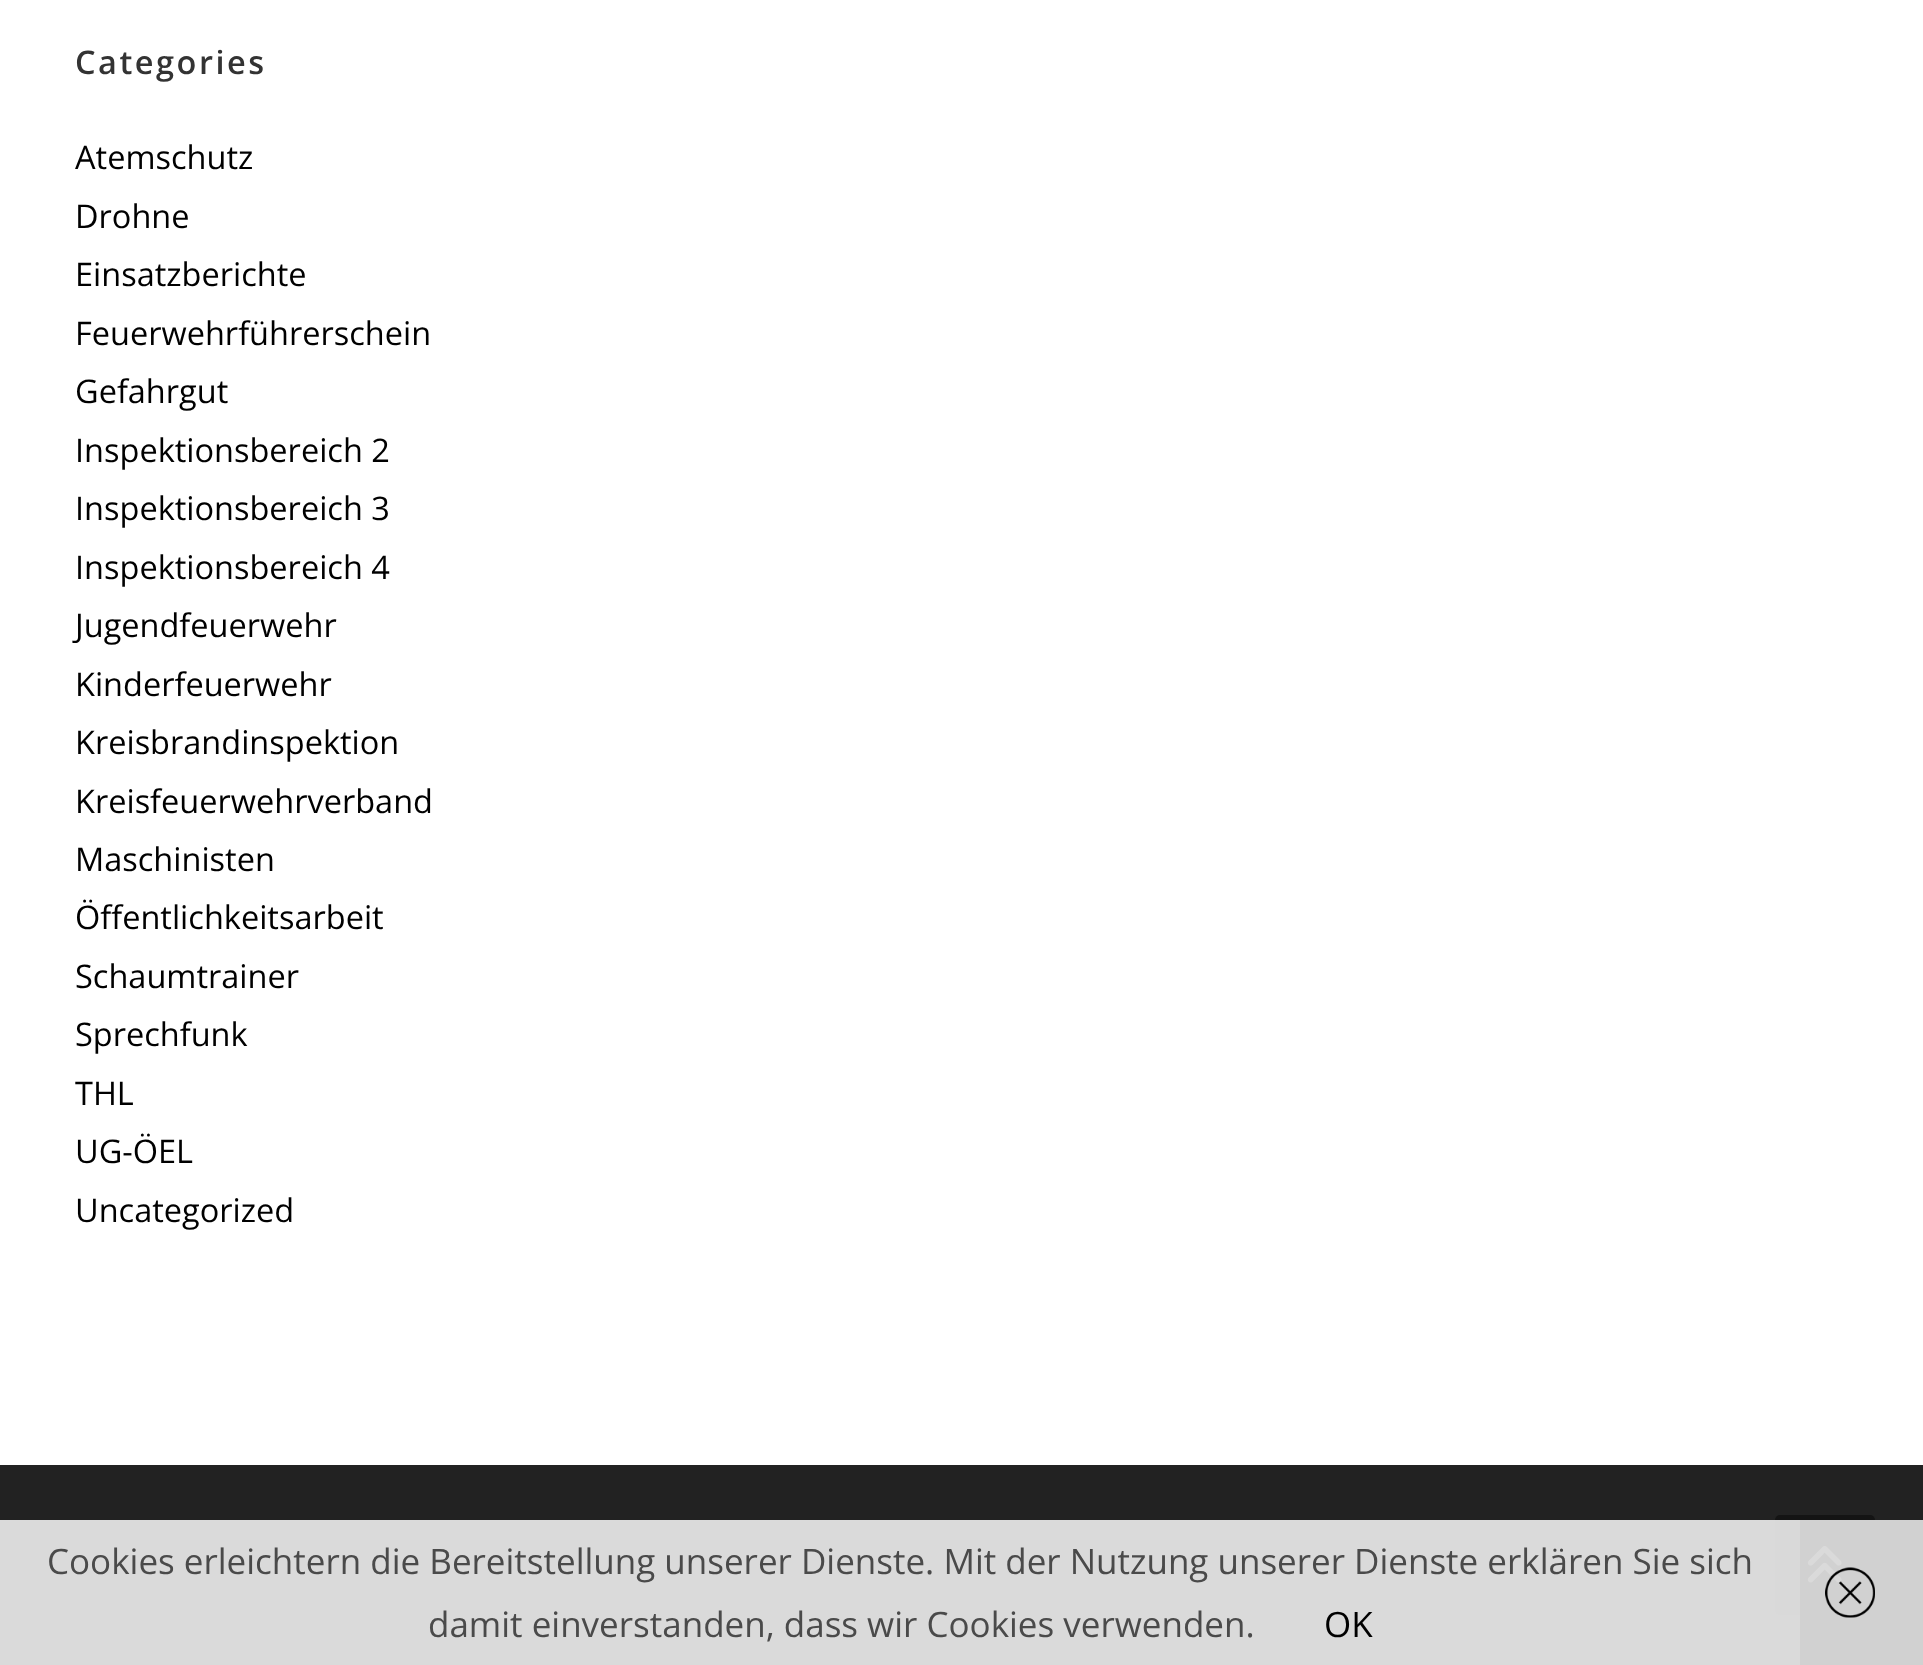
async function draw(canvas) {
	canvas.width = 1923;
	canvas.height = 1665;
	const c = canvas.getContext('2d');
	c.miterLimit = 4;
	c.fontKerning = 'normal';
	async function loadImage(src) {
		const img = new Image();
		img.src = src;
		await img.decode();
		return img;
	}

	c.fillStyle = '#fff';
	c.fillRect(0, 0, 1923, 1665);
	c.letterSpacing = '2.5px';
	c.font = '600 32.5px Open Sans';
	c.fillStyle = '#333';
	c.fillText('Categories', 75, 74);
	c.letterSpacing = '0px';
	c.font = '32.5px Open Sans';
	c.fillStyle = '#000';
	for (const [text, x, y] of [
		['Atemschutz', 75, 169],
		['Drohne', 75, 228],
		['Einsatzberichte', 75, 286],
		['Feuerwehrführerschein', 75, 345],
		['Gefahrgut', 75, 403],
		['Inspektionsbereich 2', 75, 462],
		['Inspektionsbereich 3', 75, 520],
		['Inspektionsbereich 4', 75, 579],
		['Jugendfeuerwehr', 75, 637],
		['Kinderfeuerwehr', 75, 696],
		['Kreisbrandinspektion', 75, 754],
		['Kreisfeuerwehrverband', 75, 813],
		['Maschinisten', 75, 871],
		['Öffentlichkeitsarbeit', 75, 929],
		['Schaumtrainer', 75, 988],
		['Sprechfunk', 75, 1046],
		['THL', 75, 1105],
		['UG-ÖEL', 75, 1163],
		['Uncategorized', 75, 1222],
	]) {
		c.fillText(text, x, y);
	}
	c.fillStyle = '#222';
	c.fillRect(0, 1465, 1923, 200);
	c.fillStyle = '#141414';
	c.beginPath();
	c.roundRect(1775, 1515, 100, 100, 5);
	c.fill();
	c.drawImage(await loadImage('img2.png'), 1807, 1546, 35, 37);
	c.fillStyle = '#eeeeeee6';
	c.fillRect(0, 1520, 1923, 145);
	c.font = '35px Open Sans';
	c.fillStyle = '#4a4a4a';
	c.fillText('Cookies erleichtern die Bereitstellung unserer Dienste. Mit der Nutzung unserer Dienste erklären Sie sich', 47, 1574);
	c.fillText('damit einverstanden, dass wir Cookies verwenden.', 428, 1637);
	c.fillStyle = '#000';
	c.fillText('OK', 1324, 1637);
	c.fillStyle = '#cccccc99';
	c.fillRect(1800, 1520, 123, 145);
	c.drawImage(await loadImage('img1.png'), 1825, 1567, 50, 51);
}

draw(document.querySelector('canvas'));
